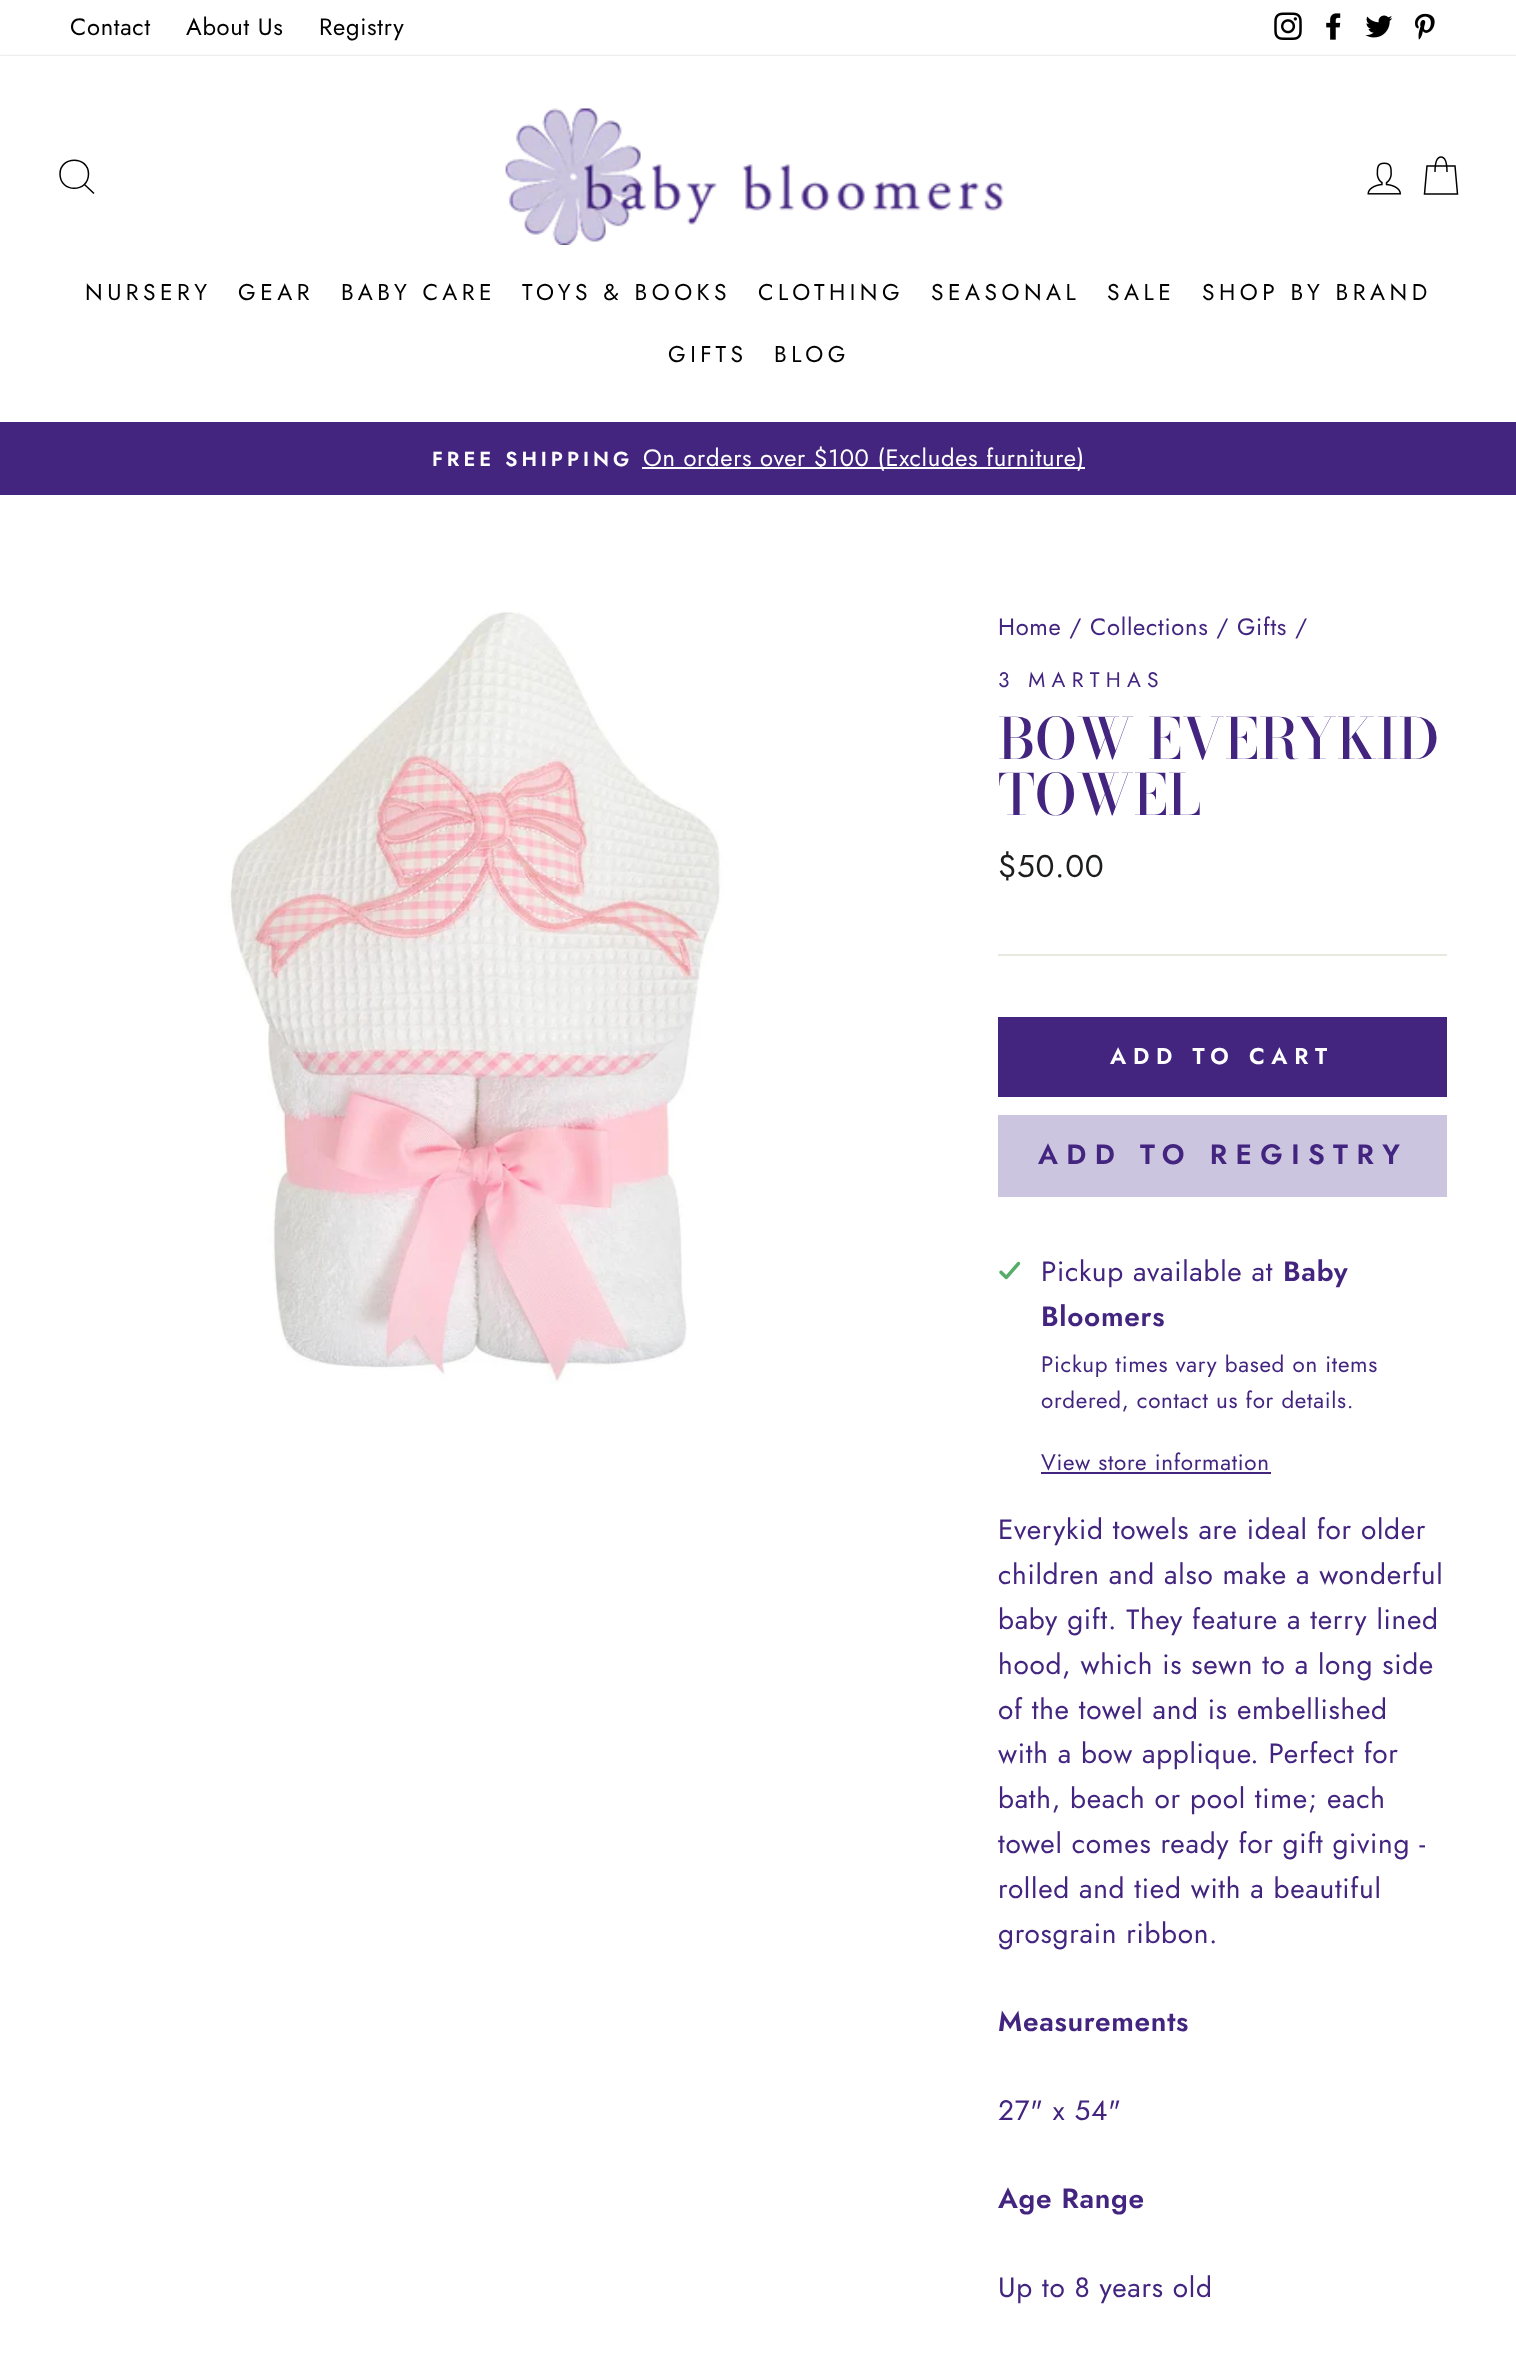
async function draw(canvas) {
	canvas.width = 1516;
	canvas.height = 2370;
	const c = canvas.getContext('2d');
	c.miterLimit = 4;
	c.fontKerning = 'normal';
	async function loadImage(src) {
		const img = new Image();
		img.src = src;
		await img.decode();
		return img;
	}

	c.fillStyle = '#fff';
	c.fillRect(0, 0, 1516, 2370);
	c.letterSpacing = '0.7px';
	c.font = '23.75px Jost';
	c.fillStyle = '#000';
	for (const [text, x, y] of [
		['Contact', 70, 35],
		['About Us', 186, 35],
		['Registry', 319, 35],
	]) {
		c.fillText(text, x, y);
	}
	c.drawImage(await loadImage('img1.png'), 1274, 12, 28, 28);
	c.drawImage(await loadImage('img2.png'), 1326, 13, 15, 27);
	c.drawImage(await loadImage('img3.png'), 1365, 15, 28, 23);
	c.drawImage(await loadImage('img4.png'), 1415, 13, 20, 27);
	c.fillStyle = '#00000033';
	c.filter = 'blur(1px)';
	c.beginPath();
	c.rect(0, 56, 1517, 366);
	c.fill();
	c.filter = 'none';
	c.fillStyle = '#fff';
	c.fillRect(0, 56, 1516, 366);
	c.beginPath();
	c.moveTo(88.5, 174);
	c.bezierCurveTo(88.5, 193, 60, 193, 60, 174);
	c.bezierCurveTo(60, 155.5, 88.5, 155.5, 88.5, 174);
	c.closePath();
	c.moveTo(94, 193.5);
	c.lineTo(84.5, 184.5);
	c.strokeStyle = '#000';
	c.lineWidth = 1.5;
	c.stroke();
	c.drawImage(await loadImage('img5.png'), 505, 108, 499, 137);
	c.drawImage(await loadImage('img6.png'), 1367, 162, 35, 33);
	c.beginPath();
	c.moveTo(1435, 172);
	c.bezierCurveTo(1435, 160, 1437.5, 157, 1441, 157);
	c.bezierCurveTo(1444.5, 157, 1447, 160, 1447, 172);
	c.moveTo(1427, 166);
	c.lineTo(1455, 166);
	c.lineTo(1457.5, 194);
	c.lineTo(1424.5, 194);
	c.closePath();
	c.stroke();
	c.letterSpacing = '4.5px';
	c.font = '22.75px Jost';
	c.fillStyle = '#000';
	for (const [text, x, y] of [
		['NURSERY', 85, 300],
		['GEAR', 238, 300],
		['BABY CARE', 341, 300],
		['TOYS & BOOKS', 522, 300],
		['CLOTHING', 758, 300],
		['SEASONAL', 931, 300],
		['SALE', 1107, 300],
		['SHOP BY BRAND', 1202, 300],
		['GIFTS', 668, 362],
		['BLOG', 774, 362],
	]) {
		c.fillText(text, x, y);
	}
	c.fillStyle = '#432580';
	c.fillRect(0, 422, 1516, 73);
	c.letterSpacing = '4px';
	c.font = '600 20.25px Jost';
	c.fillStyle = '#fff';
	c.fillText('FREE SHIPPING', 432, 466);
	c.fillRect(642, 467, 443, 2);
	c.letterSpacing = '0.7px';
	c.font = '23.75px Jost';
	c.fillText('On orders over $100 (Excludes furniture)', 643, 466);
	c.drawImage(await loadImage('img7.png'), 227, 611, 496, 773);
	c.fillStyle = '#432580';
	c.fillText('Home / Collections / Gifts /', 998, 635);
	c.letterSpacing = '6.25px';
	c.font = '21px Jost';
	c.fillText('3 MARTHAS', 998, 687);
	c.letterSpacing = '0px';
	c.font = '500 56.5px Bodoni Moda';
	c.fillText('BOW EVERYKID', 998, 759);
	c.fillText('TOWEL', 998, 815);
	c.letterSpacing = '0.7px';
	c.font = '31.5px Jost';
	c.fillStyle = '#1c1d1d';
	c.fillText('$50.00', 998, 877);
	c.fillStyle = '#e8e8e1';
	c.fillRect(998, 954, 449, 2);
	c.fillStyle = '#432580';
	c.fillRect(998, 1017, 449, 80);
	c.letterSpacing = '6.75px';
	c.font = '600 22.75px Jost';
	c.fillStyle = '#fff';
	c.fillText('ADD TO CART', 1110, 1064);
	c.fillStyle = '#ccc5df';
	c.fillRect(998, 1115, 449, 82);
	c.letterSpacing = '8.4px';
	c.font = '600 28px Jost';
	c.fillStyle = '#432580';
	c.fillText('ADD TO REGISTRY', 1038, 1164);
	c.drawImage(await loadImage('img8.png'), 999, 1261, 21, 19);
	c.letterSpacing = '0.7px';
	c.font = '28px Jost';
	c.fillText('Pickup available at', 1041, 1281);
	c.font = '600 28px Jost';
	c.fillText('Baby', 1283, 1281);
	c.fillText('Bloomers', 1041, 1326);
	c.font = '22.4px Jost';
	for (const [text, x, y] of [
		['Pickup times vary based on items', 1041, 1372],
		['ordered, contact us for details.', 1041, 1408],
		['View store information', 1041, 1470],
	]) {
		c.fillText(text, x, y);
	}
	c.fillRect(1041, 1472, 230, 2);
	c.font = '28px Jost';
	for (const [text, x, y] of [
		['Everykid towels are ideal for older', 998, 1539],
		['children and also make a wonderful', 998, 1584],
		['baby gift. They feature a terry lined', 998, 1629],
		['hood, which is sewn to a long side', 998, 1674],
		['of the towel and is embellished', 998, 1719],
		['with a bow applique. Perfect for', 998, 1763],
		['bath, beach or pool time; each', 998, 1808],
		['towel comes ready for gift giving -', 998, 1853],
		['rolled and tied with a beautiful', 998, 1898],
		['grosgrain ribbon.', 998, 1943],
	]) {
		c.fillText(text, x, y);
	}
	c.font = '600 28px Jost';
	c.fillText('Measurements', 998, 2031);
	c.font = '28px Jost';
	c.fillText('27" x 54"', 998, 2120);
	c.font = '600 28px Jost';
	c.fillText('Age Range', 998, 2208);
	c.font = '28px Jost';
	c.fillText('Up to 8 years old', 998, 2297);
}

draw(document.querySelector('canvas'));
